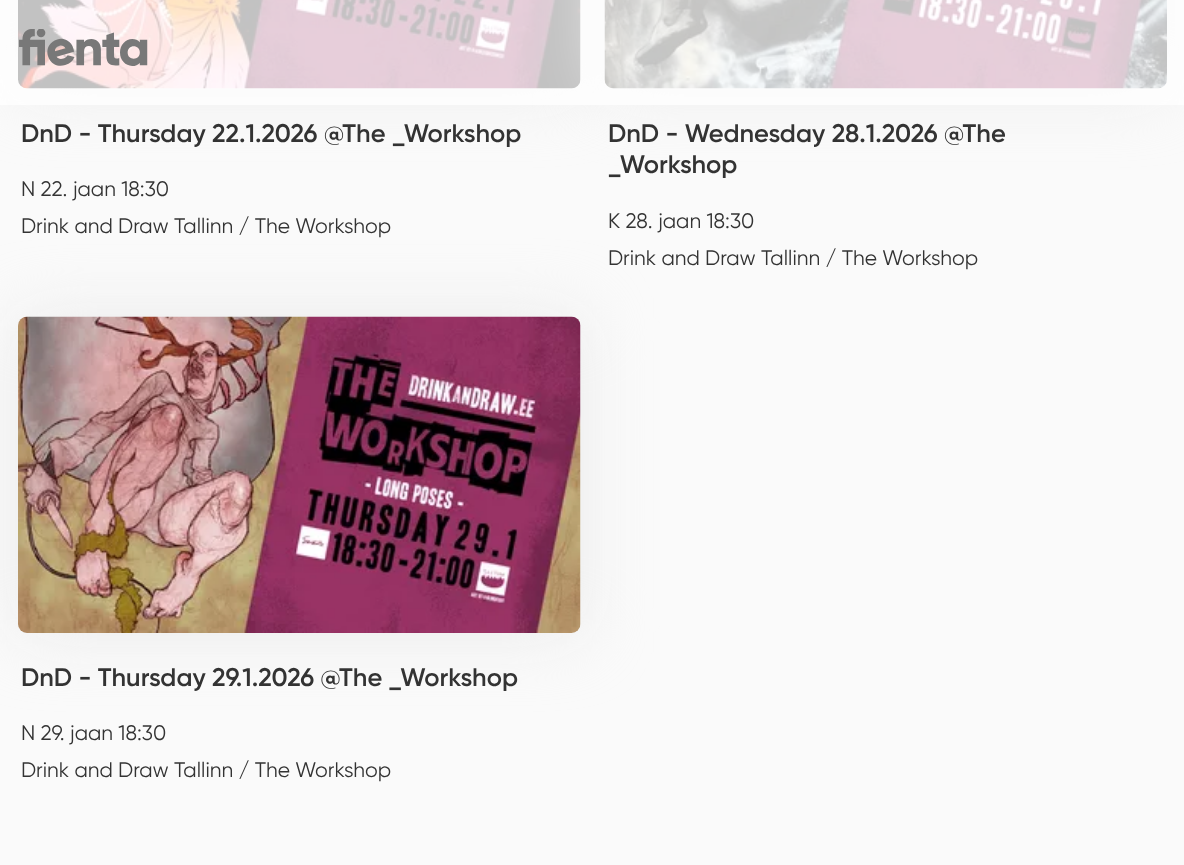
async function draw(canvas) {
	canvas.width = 1184;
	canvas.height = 865;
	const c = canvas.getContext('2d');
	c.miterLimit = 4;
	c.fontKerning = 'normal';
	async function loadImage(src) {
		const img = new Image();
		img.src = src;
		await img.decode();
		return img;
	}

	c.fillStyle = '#fafafa';
	c.fillRect(0, 0, 1184, 865);
	c.fillStyle = '#ebebeb';
	c.filter = 'blur(33px)';
	c.beginPath();
	c.roundRect(18, -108, 563, 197, 9);
	c.fill();
	c.filter = 'none';
	c.drawImage(await loadImage('img2.png'), 18, 0, 563, 89);
	c.filter = 'blur(33px)';
	c.beginPath();
	c.roundRect(605, -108, 562, 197, 9);
	c.fill();
	c.filter = 'none';
	c.drawImage(await loadImage('img3.png'), 604, 0, 563, 89);
	c.fillStyle = '#ffffffc2';
	c.fillRect(0, 0, 1184, 105);
	c.drawImage(await loadImage('img1.png'), 19, 29, 129, 37);
	c.font = '600 25.5px Gilroy';
	c.fillStyle = '#333';
	c.fillText('DnD - Thursday 22.1.2026 @The _Workshop', 21, 142);
	c.font = '21px Gilroy';
	c.fillText('N 22. jaan 18:30', 21, 196);
	c.fillText('Drink and Draw Tallinn / The Workshop', 21, 233);
	c.font = '600 25.5px Gilroy';
	c.fillText('DnD - Wednesday 28.1.2026 @The', 608, 142);
	c.fillText('_Workshop', 608, 173);
	c.font = '21px Gilroy';
	c.fillText('K 28. jaan 18:30', 608, 228);
	c.fillText('Drink and Draw Tallinn / The Workshop', 608, 265);
	c.fillStyle = '#ebebeb';
	c.filter = 'blur(33px)';
	c.beginPath();
	c.roundRect(18, 317, 563, 316, 9);
	c.fill();
	c.filter = 'none';
	c.drawImage(await loadImage('img4.png'), 18, 316, 563, 317);
	c.font = '600 25.5px Gilroy';
	c.fillStyle = '#333';
	c.fillText('DnD - Thursday 29.1.2026 @The _Workshop', 21, 686);
	c.font = '21px Gilroy';
	c.fillText('N 29. jaan 18:30', 21, 740);
	c.fillText('Drink and Draw Tallinn / The Workshop', 21, 777);
}

draw(document.querySelector('canvas'));
